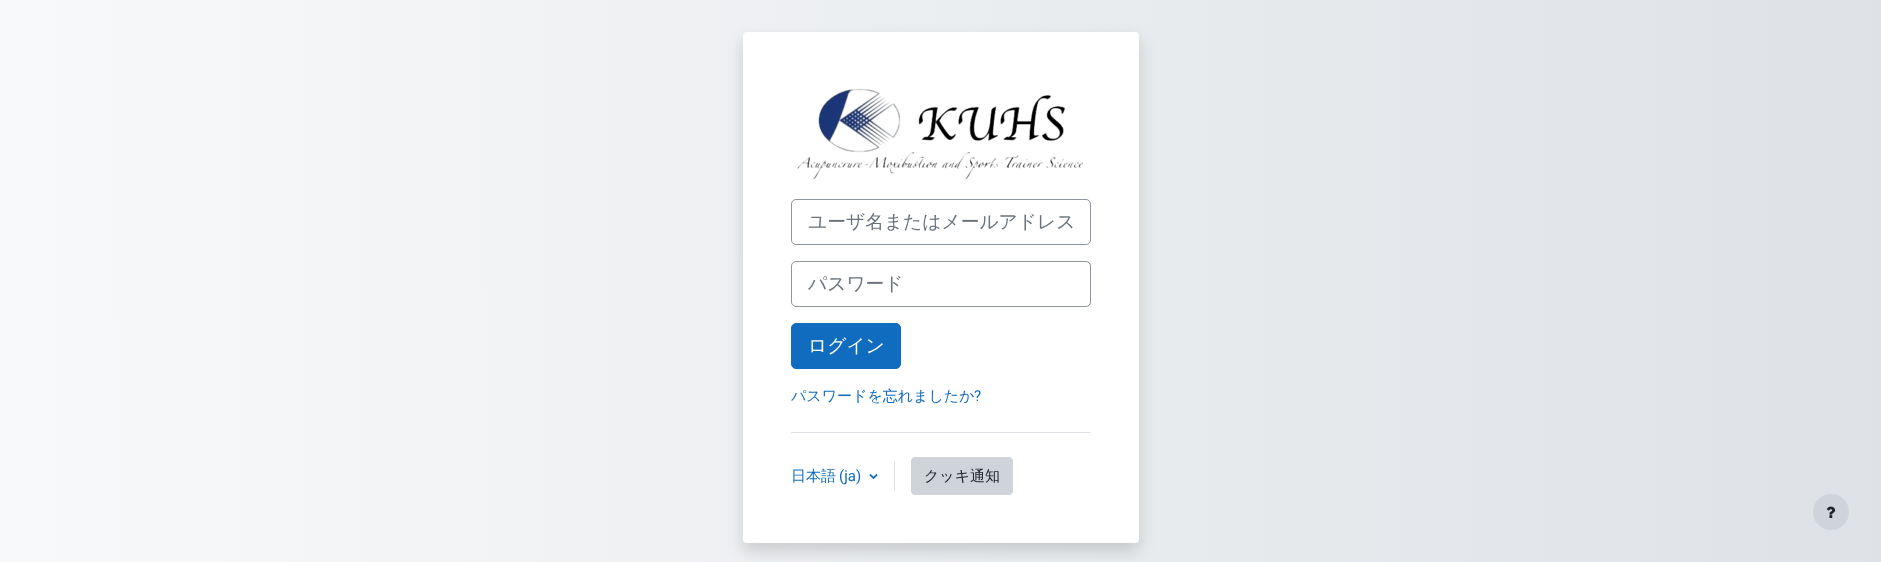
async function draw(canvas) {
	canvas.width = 1881;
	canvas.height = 562;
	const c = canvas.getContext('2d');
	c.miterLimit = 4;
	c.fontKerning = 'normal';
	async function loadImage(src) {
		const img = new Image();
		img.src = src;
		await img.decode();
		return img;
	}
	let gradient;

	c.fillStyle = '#fff';
	c.fillRect(0, 0, 1881, 562);
	gradient = c.createLinearGradient(0, 288, 1881, 287);
	gradient.addColorStop(0, '#f8f9fa');
	gradient.addColorStop(1, '#dee2e6');
	c.fillStyle = gradient;
	c.fillRect(0, 0, 1881, 562);
	c.fillStyle = '#00000026';
	c.filter = 'blur(8px)';
	c.beginPath();
	c.roundRect(743, 40, 396, 511, 4);
	c.fill();
	c.filter = 'none';
	c.fillStyle = '#fff';
	c.beginPath();
	c.roundRect(743, 32, 396, 511, 4);
	c.fill();
	c.drawImage(await loadImage('img1.png'), 797, 88, 287, 92);
	c.beginPath();
	c.roundRect(791.5, 199.5, 299, 45, 4.5);
	c.strokeStyle = '#8f959e';
	c.stroke();
	c.font = '500 18.75px WenQuanYi Zen Hei';
	c.fillStyle = '#6a737b';
	c.fillText('ユーザ名またはメールアドレス', 808, 228);
	c.beginPath();
	c.roundRect(791.5, 261.5, 299, 45, 4.5);
	c.stroke();
	c.fillText('パスワード', 808, 290);
	c.fillStyle = '#0f6cbf';
	c.beginPath();
	c.roundRect(791.5, 323.5, 109, 45, 4.5);
	c.fill();
	c.strokeStyle = '#0f6cbf';
	c.stroke();
	c.fillStyle = '#fff';
	c.fillText('ログイン', 808, 352);
	c.font = '500 15px WenQuanYi Zen Hei';
	c.fillStyle = '#0f6cbf';
	c.fillText('パスワードを忘れましたか', 791, 401);
	c.font = '15px Roboto';
	c.fillText('?', 974, 401);
	c.fillStyle = '#dee2e6';
	c.fillRect(791, 432, 300, 1);
	c.font = '500 15px WenQuanYi Zen Hei';
	c.fillStyle = '#0f6cbf';
	c.fillText('日本語', 791, 481);
	c.font = '15px Roboto';
	c.fillText('(ja)', 839, 481);
	c.drawImage(await loadImage('img2.png'), 869, 474, 9, 6);
	c.fillStyle = '#dee2e6';
	c.fillRect(894, 461, 1, 30);
	c.fillStyle = '#ced4da';
	c.beginPath();
	c.roundRect(911.5, 457.5, 101, 37, 3.5);
	c.fill();
	c.strokeStyle = '#ced4da';
	c.stroke();
	c.font = '500 15px WenQuanYi Zen Hei';
	c.fillStyle = '#1d2125';
	c.fillText('クッキ通知', 924, 481);
	c.fillStyle = '#ced4da';
	c.beginPath();
	c.arc(1831, 512, 18, 0, 2 * Math.PI);
	c.fill();
	c.drawImage(await loadImage('img3.png'), 1826, 506, 10, 12);
}

draw(document.querySelector('canvas'));
